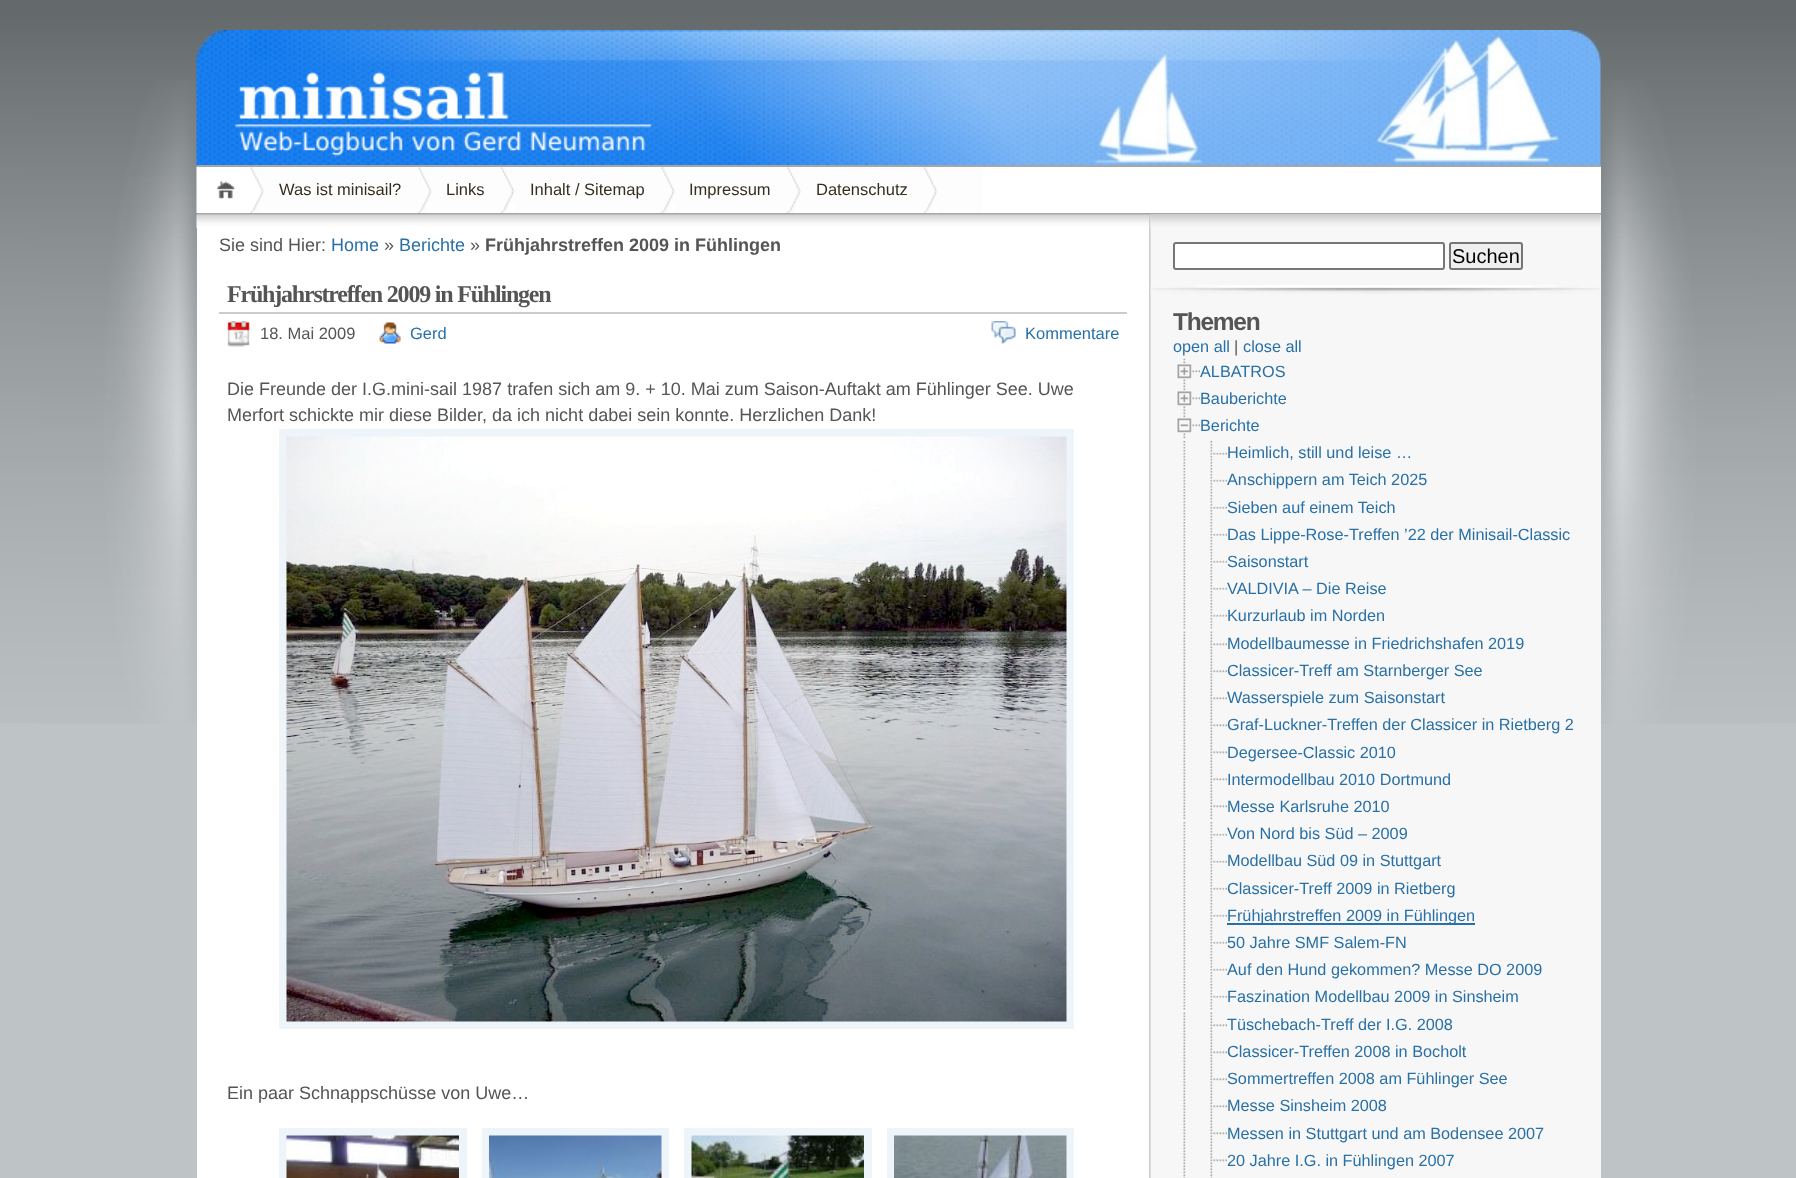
async function draw(canvas) {
	canvas.width = 1796;
	canvas.height = 1178;
	const c = canvas.getContext('2d');
	c.miterLimit = 4;
	c.fontKerning = 'normal';
	async function loadImage(src) {
		const img = new Image();
		img.src = src;
		await img.decode();
		return img;
	}

	c.fillStyle = '#bec3c6';
	c.fillRect(0, 0, 1796, 1178);
	c.drawImage(await loadImage('img1.png'), 0, 0, 1796, 723);
	c.drawImage(await loadImage('img2.png'), 38, 80, 1721, 644);
	c.drawImage(await loadImage('img3.png'), 196, 30, 1405, 135);
	c.drawImage(await loadImage('img4.png'), 196, 166, 66, 47);
	for (const [x, y, w, h, color] of [
		[197, 165, 1404, 2, '#a6a6a6'],
		[982, 167, 619, 46, '#fff'],
		[197, 213, 1404, 2, '#a6a6a6'],
	]) {
		c.fillStyle = color;
		c.fillRect(x, y, w, h);
	}
	c.drawImage(await loadImage('img5.png'), 250, 167, 180, 46);
	c.font = '16.5px Liberation Sans';
	c.fillStyle = '#382e1f';
	c.fillText('Was ist minisail?', 279, 195);
	c.drawImage(await loadImage('img6.png'), 418, 167, 94, 46);
	c.fillText('Links', 446, 195);
	c.drawImage(await loadImage('img7.png'), 501, 167, 172, 46);
	c.fillText('Inhalt / Sitemap', 530, 195);
	c.drawImage(await loadImage('img8.png'), 661, 167, 138, 46);
	c.fillText('Impressum', 689, 195);
	c.drawImage(await loadImage('img9.png'), 787, 167, 148, 46);
	c.fillText('Datenschutz', 816, 195);
	c.drawImage(await loadImage('img10.png'), 924, 167, 59, 46);
	c.fillStyle = '#fff';
	c.fillRect(197, 228, 952, 950);
	c.drawImage(await loadImage('img11.png'), 1149, 214, 452, 964);
	c.drawImage(await loadImage('img12.png'), 196, 214, 953, 14);
	c.font = '18px Liberation Sans';
	c.fillStyle = '#555';
	c.fillText('Sie sind Hier:', 219, 251);
	c.fillStyle = '#2970a6';
	c.fillText('Home', 331, 251);
	c.fillStyle = '#555';
	c.fillText('»', 384, 251);
	c.fillStyle = '#2970a6';
	c.fillText('Berichte', 399, 251);
	c.fillStyle = '#555';
	c.fillText('»', 470, 251);
	c.font = 'bold 18px Liberation Sans';
	c.fillText('Frühjahrstreffen 2009 in Fühlingen', 485, 251);
	c.fillStyle = '#ccc';
	c.fillRect(219, 312, 908, 2);
	c.letterSpacing = '-1.2px';
	c.font = 'bold 24px Liberation Serif';
	c.fillStyle = '#555';
	c.fillText('Frühjahrstreffen 2009 in Fühlingen', 227, 302);
	c.drawImage(await loadImage('img13.png'), 227, 321, 23, 26);
	c.letterSpacing = '0px';
	c.font = '16.5px Liberation Sans';
	c.fillText('18. Mai 2009', 260, 339);
	c.drawImage(await loadImage('img14.png'), 379, 322, 22, 22);
	c.fillStyle = '#2970a6';
	c.fillText('Gerd', 410, 339);
	c.drawImage(await loadImage('img15.png'), 991, 321, 25, 23);
	c.fillText('Kommentare', 1025, 339);
	c.font = '18px Liberation Sans';
	c.fillStyle = '#555';
	c.fillText('Die Freunde der I.G.mini-sail 1987 trafen sich am 9. + 10. Mai zum Saison-Auftakt am Fühlinger See. Uwe', 227, 395);
	c.fillText('Merfort schickte mir diese Bilder, da ich nicht dabei sein konnte. Herzlichen Dank!', 227, 421);
	c.fillStyle = '#edf5fa';
	c.fillRect(279, 429, 795, 600);
	c.drawImage(await loadImage('img16.png'), 286, 436, 781, 586);
	c.fillStyle = '#555';
	c.fillText('Ein paar Schnappschüsse von Uwe…', 227, 1099);
	c.fillStyle = '#edf5fa';
	c.fillRect(279, 1128, 188, 50);
	c.drawImage(await loadImage('img17.png'), 286, 1135, 173, 43);
	c.fillRect(482, 1128, 187, 50);
	c.drawImage(await loadImage('img18.png'), 489, 1135, 173, 43);
	c.fillRect(684, 1128, 188, 50);
	c.drawImage(await loadImage('img19.png'), 691, 1135, 173, 43);
	c.fillRect(887, 1128, 187, 50);
	c.drawImage(await loadImage('img20.png'), 894, 1135, 173, 43);
	c.fillStyle = '#f7f7f7';
	c.fillRect(1600, 215, 1, 963);
	c.drawImage(await loadImage('img21.png'), 1150, 214, 451, 14);
	c.drawImage(await loadImage('img22.png'), 1150, 285, 450, 9);
	c.fillStyle = '#fff';
	c.beginPath();
	c.roundRect(1174, 243, 270, 26, 2);
	c.fill();
	c.strokeStyle = '#767676';
	c.lineWidth = 2;
	c.stroke();
	c.fillStyle = '#efefef';
	c.beginPath();
	c.roundRect(1450, 243, 72, 26, 2);
	c.fill();
	c.stroke();
	c.font = '20px Liberation Sans';
	c.fillStyle = '#000';
	c.fillText('Suchen', 1452, 263);
	c.letterSpacing = '-1.25px';
	c.font = 'bold 24.5px Liberation Sans';
	c.fillStyle = '#555';
	c.fillText('Themen', 1173, 330);
	c.letterSpacing = '0px';
	c.font = '16.25px Liberation Sans';
	c.fillStyle = '#2970a6';
	c.fillText('open all', 1173, 352);
	c.fillStyle = '#555';
	c.fillText('|', 1234, 352);
	c.fillStyle = '#2970a6';
	c.fillText('close all', 1243, 352);
	c.drawImage(await loadImage('img23.png'), 1177, 358, 23, 27);
	c.fillText('ALBATROS', 1200, 377);
	c.drawImage(await loadImage('img24.png'), 1177, 385, 23, 27);
	c.fillText('Bauberichte', 1200, 404);
	c.drawImage(await loadImage('img25.png'), 1177, 412, 23, 27);
	c.fillText('Berichte', 1200, 431);
	c.drawImage(await loadImage('img26.png'), 1183, 441, 3, 26);
	c.drawImage(await loadImage('img27.png'), 1210, 441, 17, 26);
	c.fillText('Heimlich, still und leise …', 1227, 458);
	c.drawImage(await loadImage('img26.png'), 1183, 468, 3, 26);
	c.drawImage(await loadImage('img27.png'), 1210, 468, 17, 26);
	c.fillText('Anschippern am Teich 2025', 1227, 485);
	c.drawImage(await loadImage('img26.png'), 1183, 495, 3, 26);
	c.drawImage(await loadImage('img27.png'), 1210, 495, 17, 26);
	c.fillText('Sieben auf einem Teich', 1227, 513);
	c.drawImage(await loadImage('img26.png'), 1183, 522, 3, 26);
	c.drawImage(await loadImage('img27.png'), 1210, 522, 17, 26);
	c.fillText('Das Lippe-Rose-Treffen ’22 der Minisail-Classic', 1227, 540);
	c.drawImage(await loadImage('img26.png'), 1183, 549, 3, 26);
	c.drawImage(await loadImage('img27.png'), 1210, 549, 17, 26);
	c.fillText('Saisonstart', 1227, 567);
	c.drawImage(await loadImage('img26.png'), 1183, 576, 3, 26);
	c.drawImage(await loadImage('img27.png'), 1210, 576, 17, 26);
	c.fillText('VALDIVIA – Die Reise', 1227, 594);
	c.drawImage(await loadImage('img26.png'), 1183, 603, 3, 26);
	c.drawImage(await loadImage('img27.png'), 1210, 603, 17, 26);
	c.fillText('Kurzurlaub im Norden', 1227, 621);
	c.drawImage(await loadImage('img28.png'), 1183, 631, 3, 27);
	c.drawImage(await loadImage('img29.png'), 1210, 631, 17, 27);
	c.fillText('Modellbaumesse in Friedrichshafen 2019', 1227, 649);
	c.drawImage(await loadImage('img28.png'), 1183, 658, 3, 27);
	c.drawImage(await loadImage('img29.png'), 1210, 658, 17, 27);
	c.fillText('Classicer-Treff am Starnberger See', 1227, 676);
	c.drawImage(await loadImage('img28.png'), 1183, 685, 3, 27);
	c.drawImage(await loadImage('img29.png'), 1210, 685, 17, 27);
	c.fillText('Wasserspiele zum Saisonstart', 1227, 703);
	c.drawImage(await loadImage('img28.png'), 1183, 712, 3, 27);
	c.drawImage(await loadImage('img29.png'), 1210, 712, 17, 27);
	c.fillText('Graf-Luckner-Treffen der Classicer in Rietberg 2', 1227, 730);
	c.drawImage(await loadImage('img28.png'), 1183, 739, 3, 27);
	c.drawImage(await loadImage('img29.png'), 1210, 739, 17, 27);
	c.fillText('Degersee-Classic 2010', 1227, 758);
	c.drawImage(await loadImage('img28.png'), 1183, 766, 3, 27);
	c.drawImage(await loadImage('img29.png'), 1210, 766, 17, 27);
	c.fillText('Intermodellbau 2010 Dortmund', 1227, 785);
	c.drawImage(await loadImage('img28.png'), 1183, 793, 3, 27);
	c.drawImage(await loadImage('img29.png'), 1210, 793, 17, 27);
	c.fillText('Messe Karlsruhe 2010', 1227, 812);
	c.drawImage(await loadImage('img26.png'), 1183, 822, 3, 26);
	c.drawImage(await loadImage('img27.png'), 1210, 822, 17, 26);
	c.fillText('Von Nord bis Süd – 2009', 1227, 839);
	c.drawImage(await loadImage('img26.png'), 1183, 849, 3, 26);
	c.drawImage(await loadImage('img27.png'), 1210, 849, 17, 26);
	c.fillText('Modellbau Süd 09 in Stuttgart', 1227, 866);
	c.drawImage(await loadImage('img26.png'), 1183, 876, 3, 26);
	c.drawImage(await loadImage('img27.png'), 1210, 876, 17, 26);
	c.fillText('Classicer-Treff 2009 in Rietberg', 1227, 894);
	c.drawImage(await loadImage('img26.png'), 1183, 903, 3, 26);
	c.drawImage(await loadImage('img27.png'), 1210, 903, 17, 26);
	c.fillRect(1227, 923, 248, 2);
	c.fillText('Frühjahrstreffen 2009 in Fühlingen', 1227, 921);
	c.drawImage(await loadImage('img26.png'), 1183, 930, 3, 26);
	c.drawImage(await loadImage('img27.png'), 1210, 930, 17, 26);
	c.fillText('50 Jahre SMF Salem-FN', 1227, 948);
	c.drawImage(await loadImage('img26.png'), 1183, 957, 3, 26);
	c.drawImage(await loadImage('img27.png'), 1210, 957, 17, 26);
	c.fillText('Auf den Hund gekommen? Messe DO 2009', 1227, 975);
	c.drawImage(await loadImage('img26.png'), 1183, 984, 3, 26);
	c.drawImage(await loadImage('img27.png'), 1210, 984, 17, 26);
	c.fillText('Faszination Modellbau 2009 in Sinsheim', 1227, 1002);
	c.drawImage(await loadImage('img28.png'), 1183, 1012, 3, 27);
	c.drawImage(await loadImage('img29.png'), 1210, 1012, 17, 27);
	c.fillText('Tüschebach-Treff der I.G. 2008', 1227, 1030);
	c.drawImage(await loadImage('img28.png'), 1183, 1039, 3, 27);
	c.drawImage(await loadImage('img29.png'), 1210, 1039, 17, 27);
	c.fillText('Classicer-Treffen 2008 in Bocholt', 1227, 1057);
	c.drawImage(await loadImage('img28.png'), 1183, 1066, 3, 27);
	c.drawImage(await loadImage('img29.png'), 1210, 1066, 17, 27);
	c.fillText('Sommertreffen 2008 am Fühlinger See', 1227, 1084);
	c.drawImage(await loadImage('img28.png'), 1183, 1093, 3, 27);
	c.drawImage(await loadImage('img29.png'), 1210, 1093, 17, 27);
	c.fillText('Messe Sinsheim 2008', 1227, 1111);
	c.drawImage(await loadImage('img28.png'), 1183, 1120, 3, 27);
	c.drawImage(await loadImage('img29.png'), 1210, 1120, 17, 27);
	c.fillText('Messen in Stuttgart und am Bodensee 2007', 1227, 1139);
	c.drawImage(await loadImage('img28.png'), 1183, 1147, 3, 27);
	c.drawImage(await loadImage('img29.png'), 1210, 1147, 17, 27);
	c.fillText('20 Jahre I.G. in Fühlingen 2007', 1227, 1166);
	c.drawImage(await loadImage('img30.png'), 1183, 1174, 3, 4);
	c.drawImage(await loadImage('img30.png'), 1210, 1174, 3, 4);
}

draw(document.querySelector('canvas'));
